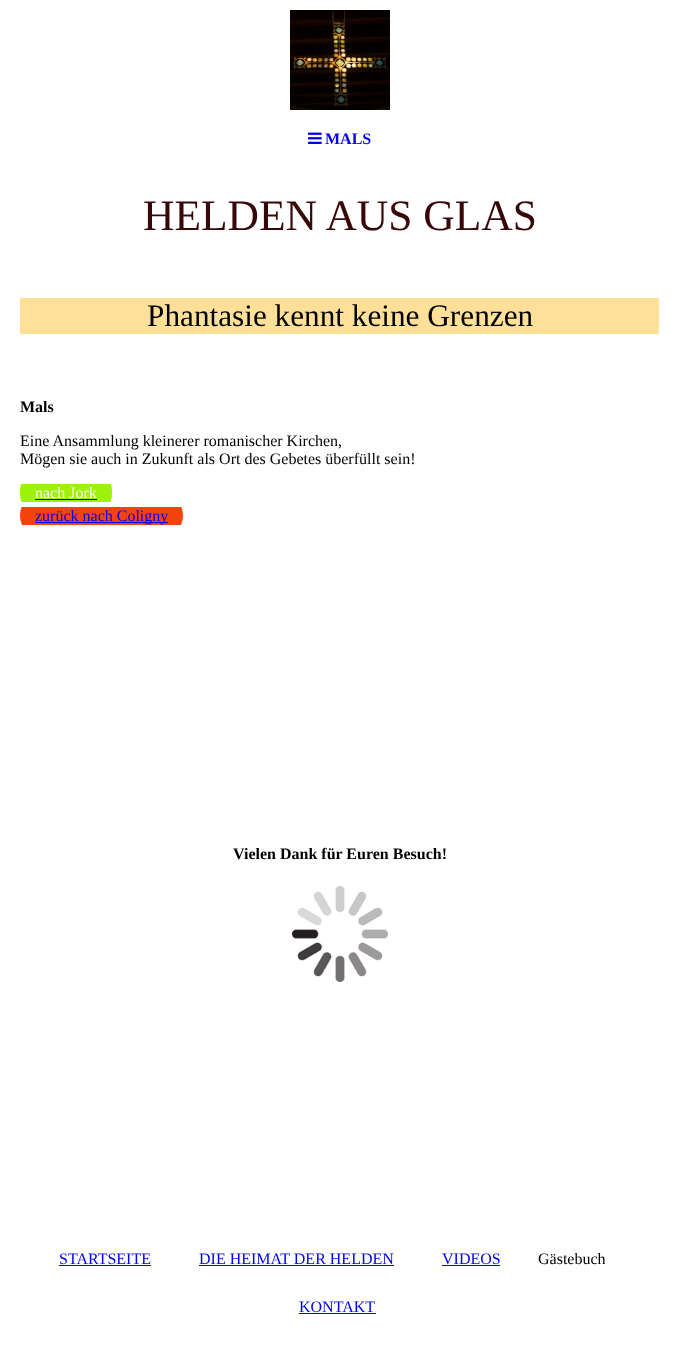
async function draw(canvas) {
	canvas.width = 679;
	canvas.height = 1356;
	const c = canvas.getContext('2d');
	c.miterLimit = 4;
	c.fontKerning = 'normal';
	async function loadImage(src) {
		const img = new Image();
		img.src = src;
		await img.decode();
		return img;
	}

	c.fillStyle = '#fff';
	c.fillRect(0, 0, 679, 1356);
	c.drawImage(await loadImage('img1.png'), 290, 10, 100, 100);
	c.drawImage(await loadImage('img2.png'), 308, 132, 14, 12);
	c.font = 'bold 16px Liberation Serif';
	c.fillStyle = '#00e';
	c.fillText('MALS', 325, 144);
	c.font = '43.5px Liberation Serif';
	c.fillStyle = '#380808';
	c.fillText('HELDEN AUS GLAS', 143, 230);
	c.fillStyle = '#ffe099';
	c.fillRect(20, 298, 639, 36);
	c.font = '31.25px Liberation Serif';
	c.fillStyle = '#000';
	c.fillText('Phantasie kennt keine Grenzen', 147, 326);
	c.font = 'bold 16px Liberation Serif';
	c.fillText('Mals', 20, 412);
	c.font = '16px Liberation Serif';
	c.fillText('Eine Ansammlung kleinerer romanischer Kirchen,', 20, 446);
	c.fillText('Mögen sie auch in Zukunft als Ort des Gebetes überfüllt sein!', 20, 464);
	c.save();
	c.beginPath();
	c.rect(20, 484, 639, 18);
	c.clip();
	c.fillStyle = '#9df10a';
	c.beginPath();
	c.roundRect(20, 469, 92, 47, 22);
	c.fill();
	c.restore();
	c.fillStyle = '#fff';
	c.fillText('nach Jork', 35, 498);
	c.fillStyle = '#00e';
	c.fillRect(35, 499, 62, 1);
	c.save();
	c.beginPath();
	c.rect(20, 507, 639, 18);
	c.clip();
	c.fillStyle = '#f3430b';
	c.beginPath();
	c.roundRect(20, 492, 163, 47, 23.5);
	c.fill();
	c.restore();
	c.fillRect(35, 522, 133, 1);
	c.fillText('zurück nach Coligny', 35, 521);
	c.font = 'bold 16px Liberation Serif';
	c.fillStyle = '#000';
	c.fillText('Vielen Dank für Euren Besuch!', 233, 859);
	c.drawImage(await loadImage('img3.png'), 292, 886, 96, 96);
	c.font = '16px Liberation Serif';
	c.fillStyle = '#00e';
	c.fillText('STARTSEITE', 59, 1264);
	c.fillRect(59, 1265, 92, 1);
	c.fillText('DIE HEIMAT DER HELDEN', 199, 1264);
	c.fillRect(199, 1265, 195, 1);
	c.fillText('VIDEOS', 442, 1264);
	c.fillRect(442, 1265, 58, 1);
	c.fillStyle = '#000';
	c.fillText('Gästebuch', 538, 1264);
	c.fillStyle = '#00e';
	c.fillText('KONTAKT', 299, 1312);
	c.fillRect(299, 1313, 77, 1);
}

draw(document.querySelector('canvas'));
